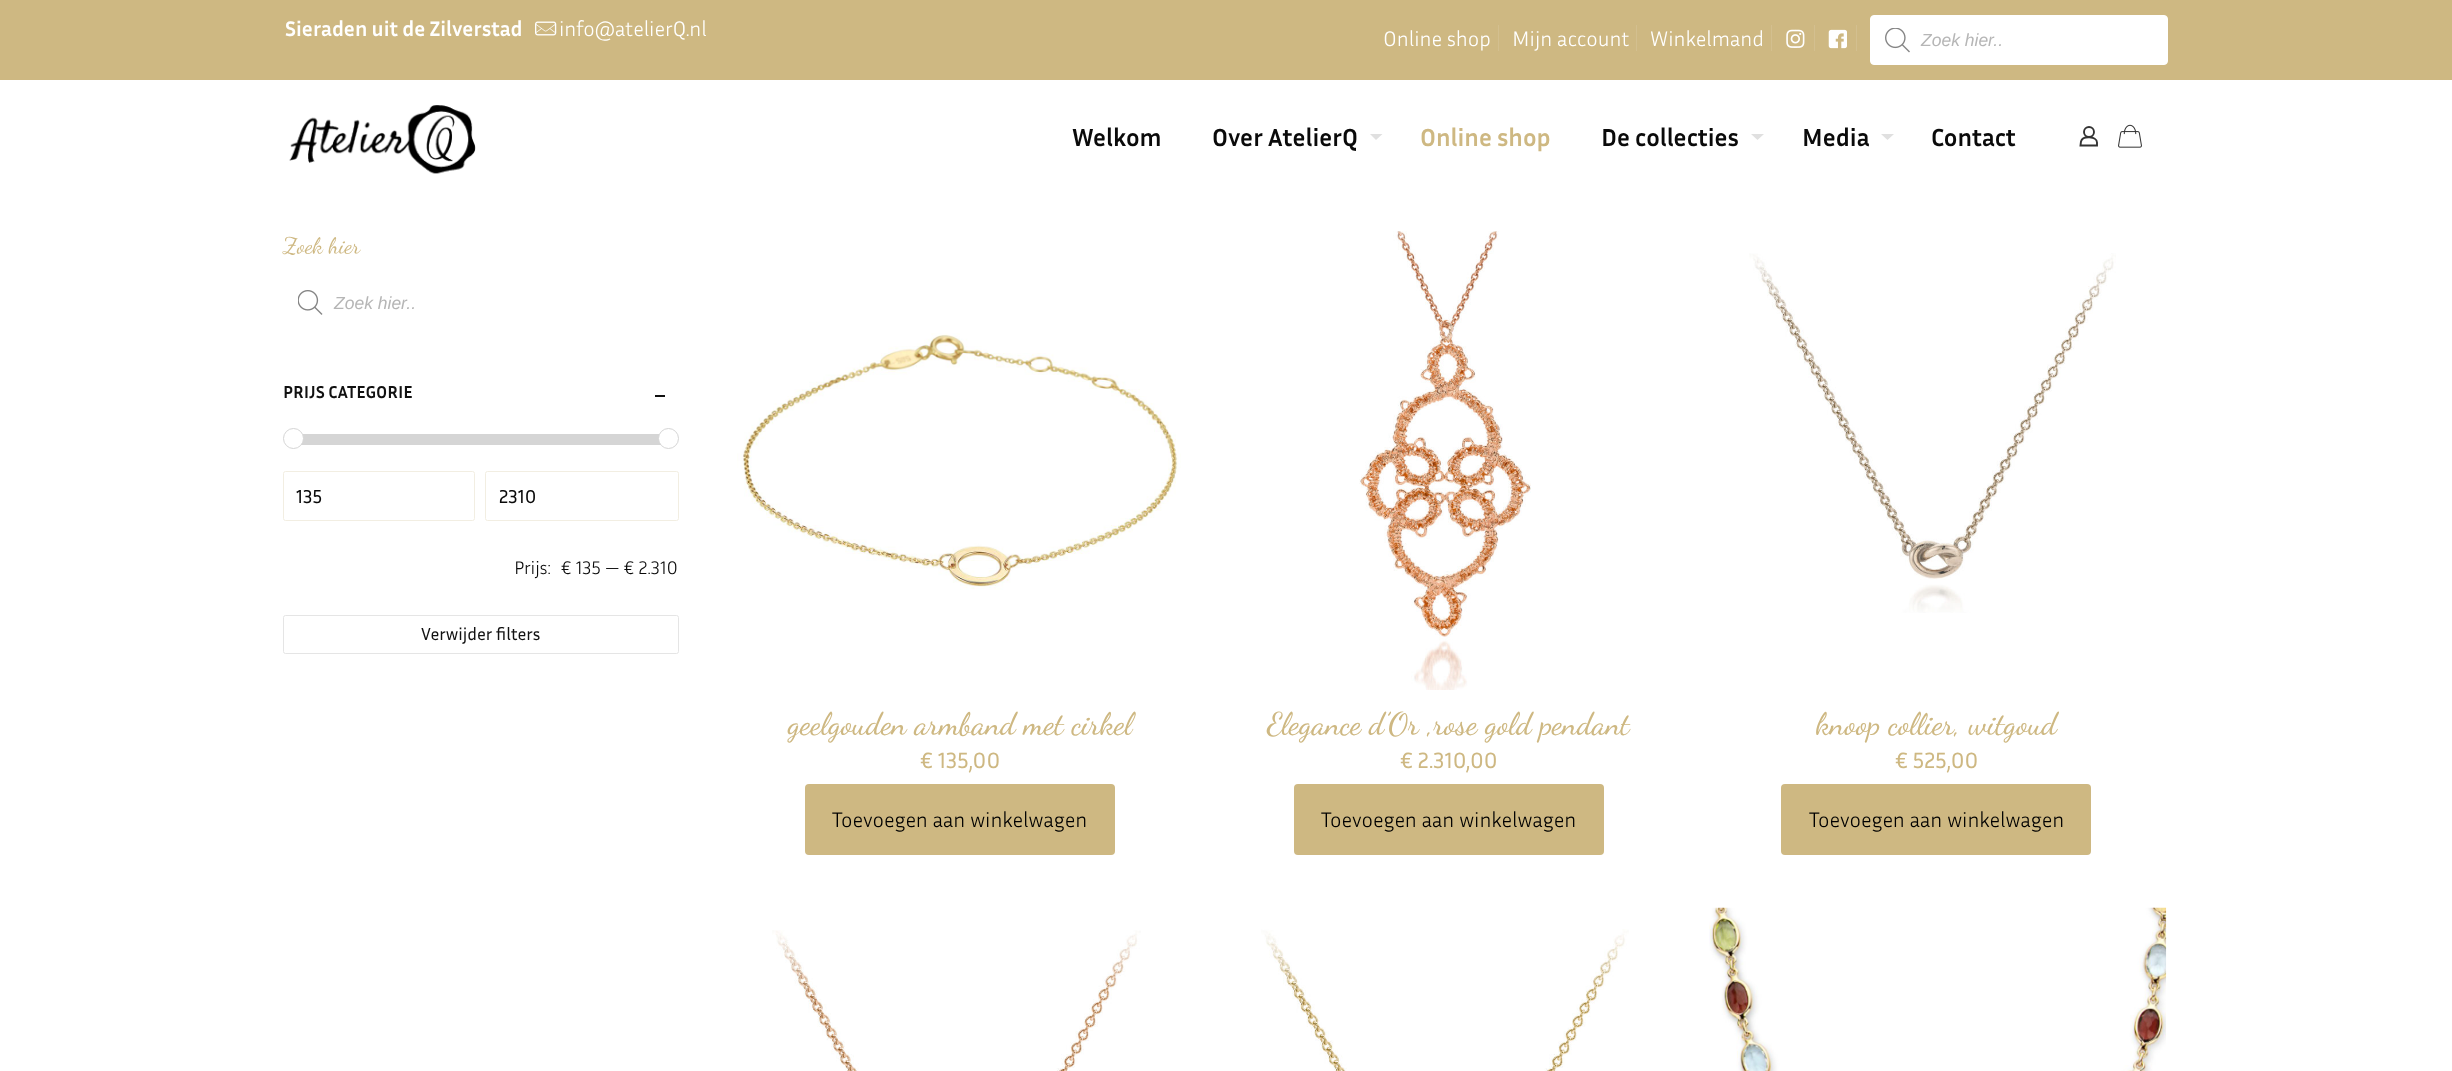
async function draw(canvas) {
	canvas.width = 2452;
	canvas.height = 1071;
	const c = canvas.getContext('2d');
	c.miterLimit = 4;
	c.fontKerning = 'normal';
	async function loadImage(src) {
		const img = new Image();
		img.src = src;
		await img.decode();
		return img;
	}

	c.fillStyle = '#fff';
	c.fillRect(0, 0, 2452, 1071);
	c.fillStyle = '#ceb882';
	c.fillRect(0, 0, 2452, 80);
	c.font = 'bold 21.25px Inria Sans';
	c.fillStyle = '#fff';
	c.fillText('Sieraden uit de Zilverstad', 285, 36);
	c.drawImage(await loadImage('img1.png'), 535, 21, 22, 15);
	c.font = '300 21.25px Inria Sans';
	c.fillText('info@atelierQ.nl', 559, 36);
	c.fillStyle = '#d3bf8f';
	c.fillRect(1498, 25, 1, 26);
	c.fillStyle = '#fff';
	c.fillText('Online shop', 1383, 46);
	c.fillStyle = '#d3bf8f';
	c.fillRect(1636, 25, 1, 26);
	c.fillStyle = '#fff';
	c.fillText('Mijn account', 1512, 46);
	c.fillStyle = '#d3bf8f';
	c.fillRect(1771, 25, 1, 26);
	c.fillStyle = '#fff';
	c.fillText('Winkelmand', 1650, 46);
	c.fillStyle = '#d3bf8f';
	c.fillRect(1814, 25, 1, 26);
	c.drawImage(await loadImage('img2.png'), 1786, 29, 19, 19);
	c.fillRect(1856, 25, 1, 26);
	c.drawImage(await loadImage('img3.png'), 1828, 29, 19, 20);
	c.fillStyle = '#fff';
	c.beginPath();
	c.roundRect(1870.5, 15.5, 297, 49, 3.5);
	c.fill();
	c.strokeStyle = '#fff';
	c.stroke();
	c.drawImage(await loadImage('img4.png'), 1885, 28, 25, 25);
	c.font = 'italic 17.5px Liberation Sans';
	c.fillStyle = '#b6b6b6';
	c.fillText('Zoek hier..', 1921, 46);
	c.drawImage(await loadImage('img5.png'), 289, 105, 187, 69);
	c.font = 'bold 25px Inria Sans';
	c.fillStyle = '#0a0a0a';
	c.fillText('Welkom', 1072, 146);
	c.fillText('Over AtelierQ', 1212, 146);
	c.fillStyle = '#e0e0e0';
	c.beginPath();
	c.moveTo(1370, 134);
	c.lineTo(1382.5, 134);
	c.lineTo(1376, 140);
	c.closePath();
	c.fill();
	c.fillStyle = '#ceb882';
	c.fillText('Online shop', 1420, 146);
	c.fillStyle = '#0a0a0a';
	c.fillText('De collecties', 1601, 146);
	c.fillStyle = '#e0e0e0';
	c.beginPath();
	c.moveTo(1751, 134);
	c.lineTo(1764, 134);
	c.lineTo(1757.5, 140);
	c.closePath();
	c.fill();
	c.fillStyle = '#0a0a0a';
	c.fillText('Media', 1802, 146);
	c.fillStyle = '#e0e0e0';
	c.beginPath();
	c.moveTo(1881, 134);
	c.lineTo(1894, 134);
	c.lineTo(1887.5, 140);
	c.closePath();
	c.fill();
	c.fillStyle = '#0a0a0a';
	c.fillText('Contact', 1931, 146);
	c.beginPath();
	c.arc(2089, 132, 5, 0, 2 * Math.PI);
	c.strokeStyle = '#333';
	c.lineWidth = 1.9;
	c.stroke();
	c.beginPath();
	c.moveTo(2097, 142.5);
	c.lineTo(2097, 145.5);
	c.lineTo(2080.5, 145.5);
	c.lineTo(2081, 141.5);
	c.bezierCurveTo(2082.5, 135.5, 2097, 136, 2097, 142.5);
	c.closePath();
	c.stroke();
	c.drawImage(await loadImage('img6.png'), 2118, 124, 24, 24);
	c.font = '22.5px Dancing Script';
	c.fillStyle = '#ceb882';
	c.fillText('Zoek hier', 283, 253);
	c.drawImage(await loadImage('img7.png'), 298, 290, 25, 25);
	c.font = 'italic 17.5px Liberation Sans';
	c.fillStyle = '#b6b6b6';
	c.fillText('Zoek hier..', 334, 309);
	c.font = 'bold 17.5px Inria Sans';
	c.fillStyle = '#111';
	c.fillText('PRIJS CATEGORIE', 283, 398);
	c.fillRect(655, 395, 10, 2);
	c.fillStyle = '#d5d5d5';
	c.fillRect(301, 434, 360, 11);
	c.fillStyle = '#fff';
	c.beginPath();
	c.arc(293.5, 438.5, 10, 0, 2 * Math.PI);
	c.fill();
	c.strokeStyle = '#d5d5d5';
	c.lineWidth = 1;
	c.stroke();
	c.beginPath();
	c.arc(668.5, 438.5, 10, 0, 2 * Math.PI);
	c.fill();
	c.stroke();
	c.beginPath();
	c.roundRect(283.5, 471.5, 191, 49, 2);
	c.strokeStyle = '#f2eee2';
	c.stroke();
	c.font = '19px Inria Sans';
	c.fillStyle = '#0a0a0a';
	c.fillText('135', 296, 503);
	c.beginPath();
	c.roundRect(485.5, 471.5, 193, 49, 2);
	c.stroke();
	c.fillText('2310', 499, 503);
	c.font = '300 18.5px Inria Sans';
	c.fillText('Prijs:', 514, 574);
	c.fillText('€ 135 — € 2.310', 561, 574);
	c.beginPath();
	c.roundRect(283.5, 615.5, 395, 38, 2);
	c.strokeStyle = '#e5e5e5';
	c.stroke();
	c.font = '17.5px Inria Sans';
	c.fillStyle = '#111';
	c.fillText('Verwijder filters', 421, 640);
	c.drawImage(await loadImage('img8.png'), 737, 333, 444, 257);
	c.font = '500 31.25px Dancing Script';
	c.fillStyle = '#ceb882';
	c.fillText('geelgouden armband met cirkel', 788, 734);
	c.font = '22.5px Inria Sans';
	c.fillText('€ 135,00', 920, 768);
	c.beginPath();
	c.roundRect(805, 784, 310, 71, 4);
	c.fill();
	c.font = '300 21.25px Inria Sans';
	c.fillStyle = '#000';
	c.fillText('Toevoegen aan winkelwagen', 832, 827);
	c.drawImage(await loadImage('img9.png'), 1359, 231, 172, 459);
	c.font = '500 31.25px Dancing Script';
	c.fillStyle = '#ceb882';
	c.fillText('Elegance d’Or ,rose gold pendant', 1267, 734);
	c.font = '22.5px Inria Sans';
	c.fillText('€ 2.310,00', 1400, 768);
	c.beginPath();
	c.roundRect(1294, 784, 310, 71, 4);
	c.fill();
	c.font = '300 21.25px Inria Sans';
	c.fillStyle = '#000';
	c.fillText('Toevoegen aan winkelwagen', 1321, 827);
	c.drawImage(await loadImage('img10.png'), 1749, 253, 367, 360);
	c.font = '500 31.25px Dancing Script';
	c.fillStyle = '#ceb882';
	c.fillText('knoop collier, witgoud', 1816, 734);
	c.font = '22.5px Inria Sans';
	c.fillText('€ 525,00', 1895, 768);
	c.beginPath();
	c.roundRect(1781, 784, 310, 71, 4);
	c.fill();
	c.font = '300 21.25px Inria Sans';
	c.fillStyle = '#000';
	c.fillText('Toevoegen aan winkelwagen', 1809, 827);
	c.drawImage(await loadImage('img11.png'), 772, 930, 369, 141);
	c.drawImage(await loadImage('img12.png'), 1261, 929, 368, 142);
	c.drawImage(await loadImage('img13.png'), 1709, 907, 458, 164);
}

draw(document.querySelector('canvas'));
